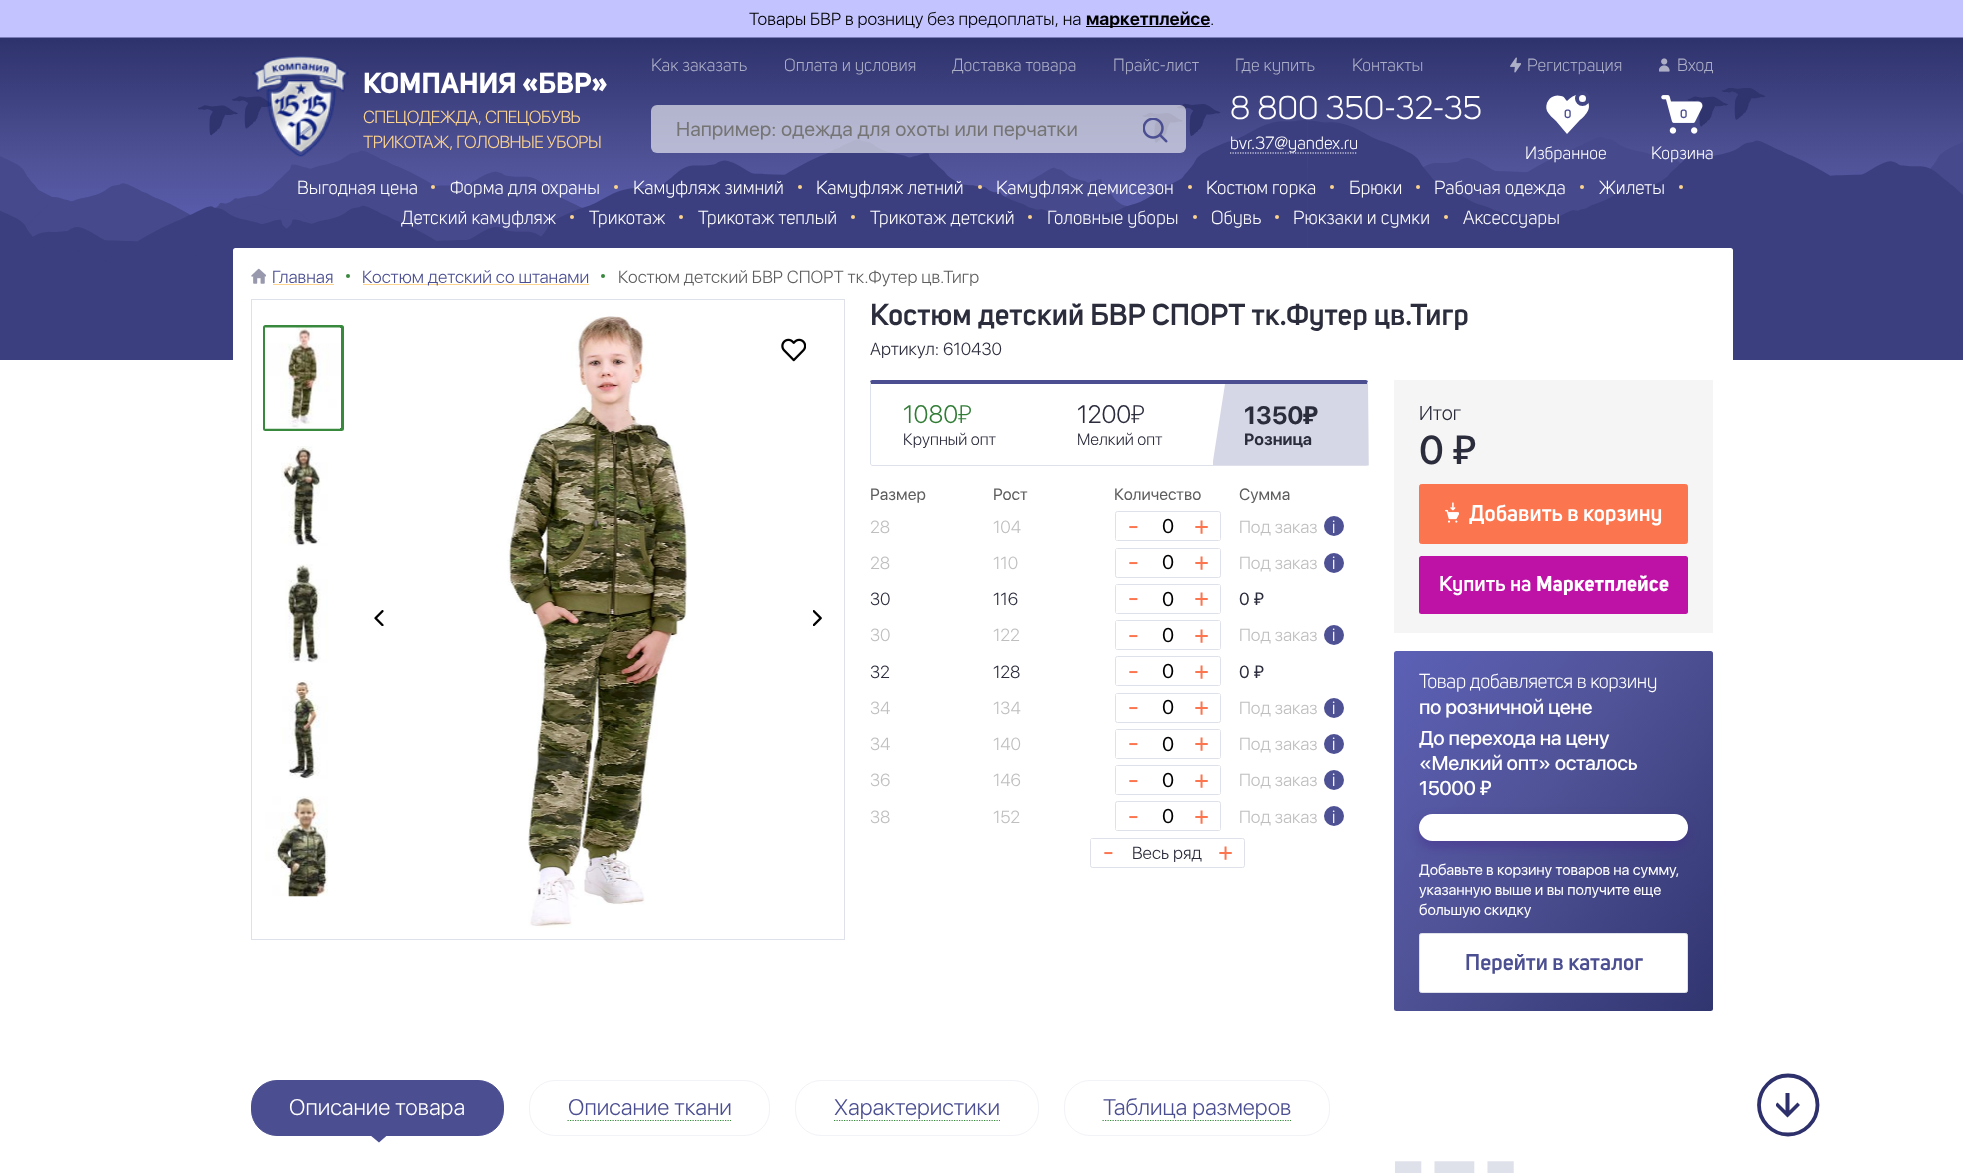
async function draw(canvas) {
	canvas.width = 1963;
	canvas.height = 1173;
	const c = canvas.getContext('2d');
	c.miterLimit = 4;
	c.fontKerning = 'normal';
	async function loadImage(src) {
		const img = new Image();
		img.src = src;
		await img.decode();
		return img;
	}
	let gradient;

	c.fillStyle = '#fff';
	c.fillRect(0, 0, 1963, 1173);
	c.fillStyle = '#c3c4ff';
	c.fillRect(0, 0, 1963, 38);
	c.font = '300 17.5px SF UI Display';
	c.fillStyle = '#000';
	c.fillText('Товары БВР в розницу без предоплаты, на', 749, 25);
	c.fillRect(1086, 26, 124, 1);
	c.font = 'bold 17.5px SF UI Display';
	c.fillText('маркетплейсе', 1086, 25);
	c.font = '300 17.5px SF UI Display';
	c.fillText('.', 1210, 25);
	c.drawImage(await loadImage('img1.png'), 0, 37, 1963, 211);
	c.drawImage(await loadImage('img2.png'), 252, 56, 97, 101);
	c.font = 'bold 28.75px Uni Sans';
	c.fillStyle = '#fff';
	c.fillText('КОМПАНИЯ «БВР»', 363, 93);
	c.letterSpacing = '-0.5px';
	c.font = '300 17.5px SF UI Display';
	c.fillStyle = '#fdd48f';
	c.fillText('СПЕЦОДЕЖДА, СПЕЦОБУВЬ', 363, 123);
	c.fillText('ТРИКОТАЖ, ГОЛОВНЫЕ УБОРЫ', 363, 148);
	c.letterSpacing = '0px';
	c.font = '17.5px Uni Sans';
	c.fillStyle = '#adafc7';
	for (const [text, x, y] of [
		['Как заказать', 651, 71],
		['Оплата и условия', 784, 71],
		['Доставка товара', 952, 71],
		['Прайс-лист', 1113, 71],
		['Где купить', 1235, 71],
		['Контакты', 1352, 71],
	]) {
		c.fillText(text, x, y);
	}
	c.drawImage(await loadImage('img3.png'), 1510, 57, 11, 16);
	c.fillText('Регистрация', 1527, 71);
	c.drawImage(await loadImage('img4.png'), 1659, 58, 11, 14);
	c.fillText('Вход', 1677, 71);
	c.fillStyle = '#ffffff99';
	c.beginPath();
	c.roundRect(651, 105, 535, 48, 6);
	c.fill();
	c.font = '20px SF UI Display';
	c.fillStyle = '#757575';
	c.fillText('Например: одежда для охоты или перчатки', 676, 136);
	c.drawImage(await loadImage('img5.png'), 1143, 118, 25, 25);
	c.font = '32.5px Uni Sans';
	c.fillStyle = '#fff';
	c.fillText('8 800 350-32-35', 1230, 119);
	c.beginPath();
	c.moveTo(1230, 153);
	c.lineTo(1357.5, 153);
	c.strokeStyle = '#fff';
	c.lineWidth = 1.2;
	c.setLineDash([1.25, 1.25]);
	c.stroke();
	c.font = '17.5px Uni Sans';
	c.fillText('bvr.37@yandex.ru', 1230, 149);
	c.beginPath();
	c.moveTo(1585, 98);
	c.bezierCurveTo(1579, 92, 1573, 95, 1567, 101);
	c.bezierCurveTo(1565, 99, 1564, 96, 1561, 96);
	c.bezierCurveTo(1551, 93, 1544, 103, 1547, 111);
	c.bezierCurveTo(1549, 115, 1553, 118, 1556, 121);
	c.lineTo(1567, 134);
	c.lineTo(1579, 121);
	c.bezierCurveTo(1586, 115, 1594, 107, 1585, 98);
	c.closePath();
	c.fill();
	c.beginPath();
	c.arc(1582.5, 98.5, 5.5, 0, 2 * Math.PI);
	c.fill();
	c.strokeStyle = '#424685';
	c.lineWidth = 4;
	c.setLineDash([]);
	c.stroke();
	c.font = '600 12px Uni Sans';
	c.fillStyle = '#4b4e91';
	c.fillText('0', 1564, 118);
	c.font = '17.5px Uni Sans';
	c.fillStyle = '#fff';
	c.fillText('Избранное', 1525, 159);
	c.drawImage(await loadImage('img6.png'), 1661, 95, 42, 39);
	c.font = '600 12px Uni Sans';
	c.fillStyle = '#4b4e91';
	c.fillText('0', 1680, 118);
	c.font = '17.5px Uni Sans';
	c.fillStyle = '#fff';
	c.fillText('Корзина', 1651, 159);
	c.font = '18.75px Uni Sans';
	c.fillText('Выгодная цена', 297, 194);
	c.fillStyle = '#fdd48f';
	c.beginPath();
	c.arc(433, 187, 2, 0, 2 * Math.PI);
	c.fill();
	c.fillStyle = '#fff';
	c.fillText('Форма для охраны', 450, 194);
	c.fillStyle = '#fdd48f';
	c.beginPath();
	c.arc(616, 187, 2, 0, 2 * Math.PI);
	c.fill();
	c.fillStyle = '#fff';
	c.fillText('Камуфляж зимний', 633, 194);
	c.fillStyle = '#fdd48f';
	c.beginPath();
	c.arc(800, 187, 2, 0, 2 * Math.PI);
	c.fill();
	c.fillStyle = '#fff';
	c.fillText('Камуфляж летний', 816, 194);
	c.fillStyle = '#fdd48f';
	c.beginPath();
	c.arc(980, 187, 2, 0, 2 * Math.PI);
	c.fill();
	c.fillStyle = '#fff';
	c.fillText('Камуфляж демисезон', 996, 194);
	c.fillStyle = '#fdd48f';
	c.beginPath();
	c.arc(1190, 187, 2, 0, 2 * Math.PI);
	c.fill();
	c.fillStyle = '#fff';
	c.fillText('Костюм горка', 1206, 194);
	c.fillStyle = '#fdd48f';
	c.beginPath();
	c.arc(1332, 187, 2, 0, 2 * Math.PI);
	c.fill();
	c.fillStyle = '#fff';
	c.fillText('Брюки', 1349, 194);
	c.fillStyle = '#fdd48f';
	c.beginPath();
	c.arc(1418, 187, 2, 0, 2 * Math.PI);
	c.fill();
	c.fillStyle = '#fff';
	c.fillText('Рабочая одежда', 1434, 194);
	c.fillStyle = '#fdd48f';
	c.beginPath();
	c.arc(1582, 187, 2, 0, 2 * Math.PI);
	c.fill();
	c.fillStyle = '#fff';
	c.fillText('Жилеты', 1599, 194);
	c.fillStyle = '#fdd48f';
	c.beginPath();
	c.arc(1681, 187, 2, 0, 2 * Math.PI);
	c.fill();
	c.fillStyle = '#fff';
	c.fillText('Детский камуфляж', 401, 224);
	c.fillStyle = '#fdd48f';
	c.beginPath();
	c.arc(572, 217, 2, 0, 2 * Math.PI);
	c.fill();
	c.fillStyle = '#fff';
	c.fillText('Трикотаж', 589, 224);
	c.fillStyle = '#fdd48f';
	c.beginPath();
	c.arc(681, 217, 2, 0, 2 * Math.PI);
	c.fill();
	c.fillStyle = '#fff';
	c.fillText('Трикотаж теплый', 698, 224);
	c.fillStyle = '#fdd48f';
	c.beginPath();
	c.arc(853, 217, 2, 0, 2 * Math.PI);
	c.fill();
	c.fillStyle = '#fff';
	c.fillText('Трикотаж детский', 870, 224);
	c.fillStyle = '#fdd48f';
	c.beginPath();
	c.arc(1030, 217, 2, 0, 2 * Math.PI);
	c.fill();
	c.fillStyle = '#fff';
	c.fillText('Головные уборы', 1047, 224);
	c.fillStyle = '#fdd48f';
	c.beginPath();
	c.arc(1195, 217, 2, 0, 2 * Math.PI);
	c.fill();
	c.fillStyle = '#fff';
	c.fillText('Обувь', 1211, 224);
	c.fillStyle = '#fdd48f';
	c.beginPath();
	c.arc(1277, 217, 2, 0, 2 * Math.PI);
	c.fill();
	c.fillStyle = '#fff';
	c.fillText('Рюкзаки и сумки', 1293, 224);
	c.fillStyle = '#fdd48f';
	c.beginPath();
	c.arc(1446, 217, 2, 0, 2 * Math.PI);
	c.fill();
	c.fillStyle = '#fff';
	c.fillText('Аксессуары', 1463, 224);
	c.drawImage(await loadImage('img7.png'), 0, 248, 1963, 112);
	c.beginPath();
	c.roundRect(233, 248, 1500, 112, [2.5, 2.5, 0, 0]);
	c.fill();
	c.drawImage(await loadImage('img8.png'), 251, 268, 15, 16);
	c.font = '300 17.5px SF UI Display';
	c.fillStyle = '#4b4e91';
	c.fillText('Главная', 272, 283);
	c.fillStyle = '#fdd48f';
	c.fillRect(273, 284, 61, 1);
	c.fillStyle = '#38883e';
	c.beginPath();
	c.arc(348, 276, 2, 0, 2 * Math.PI);
	c.fill();
	c.fillStyle = '#fdd48f';
	c.fillRect(363, 284, 226, 1);
	c.fillStyle = '#4b4e91';
	c.fillText('Костюм детский со штанами', 362, 283);
	c.fillStyle = '#38883e';
	c.beginPath();
	c.arc(603, 276, 2, 0, 2 * Math.PI);
	c.fill();
	c.fillStyle = '#5e5e5e';
	c.fillText('Костюм детский БВР СПОРТ тк.Футер цв.Тигр', 618, 283);
	c.strokeStyle = '#dfe1ea';
	c.lineWidth = 1;
	c.strokeRect(251.5, 299.5, 593, 640);
	c.beginPath();
	c.roundRect(264.5, 326.5, 78, 103, 1);
	c.strokeStyle = '#38883e';
	c.lineWidth = 3;
	c.stroke();
	c.drawImage(await loadImage('img9.png'), 265, 327, 75, 102);
	c.drawImage(await loadImage('img10.png'), 281, 446, 47, 100);
	c.drawImage(await loadImage('img11.png'), 285, 564, 43, 99);
	c.drawImage(await loadImage('img12.png'), 282, 680, 46, 99);
	c.drawImage(await loadImage('img13.png'), 265, 796, 63, 101);
	c.drawImage(await loadImage('img14.png'), 507, 316, 181, 612);
	c.drawImage(await loadImage('img15.png'), 374, 610, 10, 16);
	c.drawImage(await loadImage('img16.png'), 813, 610, 9, 16);
	c.drawImage(await loadImage('img17.png'), 781, 338, 25, 24);
	c.font = '600 30px Uni Sans';
	c.fillStyle = '#2b2c3c';
	c.fillText('Костюм детский БВР СПОРТ тк.Футер цв.Тигр', 870, 325);
	c.font = '300 17.5px SF UI Display';
	c.fillText('Артикул: 610430', 870, 355);
	c.fillStyle = '#4b4e91';
	c.beginPath();
	c.moveTo(872, 380);
	c.lineTo(870, 381);
	c.lineTo(871, 384);
	c.lineTo(1367, 384);
	c.lineTo(1368, 381);
	c.lineTo(1366, 380);
	c.closePath();
	c.fill();
	c.fillStyle = '#dfe1ea';
	c.beginPath();
	c.moveTo(1369, 465);
	c.lineTo(1368, 466);
	c.lineTo(1367, 465);
	c.lineTo(1368, 464);
	c.lineTo(1368, 384);
	c.lineTo(1367, 384);
	c.lineTo(1368, 381);
	c.closePath();
	c.fill();
	c.beginPath();
	c.moveTo(1368, 466);
	c.lineTo(1366, 466);
	c.lineTo(872, 466);
	c.lineTo(871, 465);
	c.lineTo(872, 465);
	c.lineTo(1366, 465);
	c.lineTo(1367, 465);
	c.closePath();
	c.fill();
	c.beginPath();
	c.moveTo(870, 382);
	c.lineTo(870, 464);
	c.lineTo(871, 465);
	c.lineTo(872, 465);
	c.lineTo(871, 464);
	c.lineTo(871, 384);
	c.lineTo(870, 381);
	c.closePath();
	c.fill();
	c.font = '300 25px SF UI Display';
	c.fillStyle = '#317d36';
	c.fillText('1080', 903, 423);
	c.font = '300 25px Noto Sans';
	c.fillText('₽', 958, 423);
	c.font = '300 16.25px SF UI Display';
	c.fillStyle = '#2b2c3c';
	c.fillText('Крупный опт', 903, 445);
	c.font = '300 25px SF UI Display';
	c.fillText('1200', 1077, 423);
	c.font = '300 25px Noto Sans';
	c.fillText('₽', 1131, 423);
	c.font = '300 16.25px SF UI Display';
	c.fillText('Мелкий опт', 1077, 445);
	c.fillStyle = '#d6d7e6';
	c.beginPath();
	c.moveTo(1213, 461);
	c.lineTo(1225, 384);
	c.lineTo(1368, 384);
	c.lineTo(1368, 465);
	c.lineTo(1213, 465);
	c.closePath();
	c.fill();
	c.font = 'bold 25px SF UI Display';
	c.fillStyle = '#2b2c3c';
	c.fillText('1350', 1244, 424);
	c.font = 'bold 25px Noto Sans';
	c.fillText('₽', 1303, 424);
	c.font = 'bold 16.25px SF UI Display';
	c.fillText('Розница', 1244, 445);
	c.font = '16.25px SF UI Display';
	c.fillStyle = '#5e5e5e';
	for (const [text, x, y] of [
		['Размер', 870, 500],
		['Рост', 993, 500],
		['Количество', 1114, 500],
		['Сумма', 1239, 500],
	]) {
		c.fillText(text, x, y);
	}
	c.font = '300 17.5px SF UI Display';
	c.fillStyle = '#bfbfbf';
	c.fillText('28', 870, 533);
	c.fillText('104', 993, 533);
	c.beginPath();
	c.roundRect(1115.5, 511.5, 105, 29, 2);
	c.strokeStyle = '#dfe1ea';
	c.lineWidth = 1;
	c.stroke();
	c.fillStyle = '#fff';
	c.fillRect(1116, 539, 1, 1);
	c.font = '25px SF UI Display';
	c.fillStyle = '#fb754f';
	c.fillText('-', 1128, 534);
	c.font = '20px SF UI Display';
	c.fillStyle = '#000';
	c.fillText('0', 1162, 533);
	c.fillStyle = '#fff';
	c.fillRect(1219, 539, 1, 1);
	c.font = '25px SF UI Display';
	c.fillStyle = '#fb754f';
	c.fillText('+', 1194, 534);
	c.font = '300 17.5px SF UI Display';
	c.fillStyle = '#bfbfbf';
	c.fillText('Под заказ', 1239, 533);
	c.fillStyle = '#4e5295';
	c.beginPath();
	c.arc(1334, 526, 10, 0, 2 * Math.PI);
	c.fill();
	c.fillStyle = '#fff';
	c.fillText('i', 1332, 533);
	c.fillStyle = '#bfbfbf';
	c.fillText('28', 870, 569);
	c.fillText('110', 993, 569);
	c.beginPath();
	c.roundRect(1115.5, 548.5, 105, 29, 2);
	c.stroke();
	c.fillStyle = '#fff';
	c.fillRect(1116, 549, 1, 1);
	c.font = '25px SF UI Display';
	c.fillStyle = '#fb754f';
	c.fillText('-', 1128, 570);
	c.font = '20px SF UI Display';
	c.fillStyle = '#000';
	c.fillText('0', 1162, 569);
	c.fillStyle = '#fff';
	c.fillRect(1219, 549, 1, 1);
	c.font = '25px SF UI Display';
	c.fillStyle = '#fb754f';
	c.fillText('+', 1194, 570);
	c.font = '300 17.5px SF UI Display';
	c.fillStyle = '#bfbfbf';
	c.fillText('Под заказ', 1239, 569);
	c.fillStyle = '#4e5295';
	c.beginPath();
	c.arc(1334, 563, 10, 0, 2 * Math.PI);
	c.fill();
	c.fillStyle = '#fff';
	c.fillText('i', 1332, 569);
	c.fillStyle = '#2b2c3c';
	c.fillText('30', 870, 605);
	c.fillText('116', 993, 605);
	c.beginPath();
	c.roundRect(1115.5, 584.5, 105, 29, 2);
	c.stroke();
	c.fillStyle = '#fff';
	c.fillRect(1116, 585, 1, 28);
	c.font = '25px SF UI Display';
	c.fillStyle = '#fb754f';
	c.fillText('-', 1128, 606);
	c.font = '20px SF UI Display';
	c.fillStyle = '#000';
	c.fillText('0', 1162, 606);
	c.fillStyle = '#fff';
	c.fillRect(1219, 585, 1, 28);
	c.font = '25px SF UI Display';
	c.fillStyle = '#fb754f';
	c.fillText('+', 1194, 606);
	c.font = '17.5px SF UI Display';
	c.fillStyle = '#2b2c3c';
	c.fillText('0', 1239, 605);
	c.font = '17.5px Noto Sans';
	c.fillText('₽', 1254, 605);
	c.font = '300 17.5px SF UI Display';
	c.fillStyle = '#bfbfbf';
	c.fillText('30', 870, 641);
	c.fillText('122', 993, 641);
	c.beginPath();
	c.roundRect(1115.5, 620.5, 105, 29, 2);
	c.stroke();
	c.fillStyle = '#fff';
	c.fillRect(1116, 621, 1, 28);
	c.font = '25px SF UI Display';
	c.fillStyle = '#fb754f';
	c.fillText('-', 1128, 643);
	c.font = '20px SF UI Display';
	c.fillStyle = '#000';
	c.fillText('0', 1162, 642);
	c.fillStyle = '#fff';
	c.fillRect(1219, 621, 1, 28);
	c.font = '25px SF UI Display';
	c.fillStyle = '#fb754f';
	c.fillText('+', 1194, 643);
	c.font = '300 17.5px SF UI Display';
	c.fillStyle = '#bfbfbf';
	c.fillText('Под заказ', 1239, 641);
	c.fillStyle = '#4e5295';
	c.beginPath();
	c.arc(1334, 635, 10, 0, 2 * Math.PI);
	c.fill();
	c.fillStyle = '#fff';
	c.fillText('i', 1332, 641);
	c.fillStyle = '#2b2c3c';
	c.fillText('32', 870, 678);
	c.fillText('128', 993, 678);
	c.beginPath();
	c.roundRect(1115.5, 656.5, 105, 29, 2);
	c.stroke();
	c.fillStyle = '#fff';
	c.fillRect(1116, 684, 1, 1);
	c.font = '25px SF UI Display';
	c.fillStyle = '#fb754f';
	c.fillText('-', 1128, 679);
	c.font = '20px SF UI Display';
	c.fillStyle = '#000';
	c.fillText('0', 1162, 678);
	c.fillStyle = '#fff';
	c.fillRect(1219, 684, 1, 1);
	c.font = '25px SF UI Display';
	c.fillStyle = '#fb754f';
	c.fillText('+', 1194, 679);
	c.font = '17.5px SF UI Display';
	c.fillStyle = '#2b2c3c';
	c.fillText('0', 1239, 678);
	c.font = '17.5px Noto Sans';
	c.fillText('₽', 1254, 678);
	c.font = '300 17.5px SF UI Display';
	c.fillStyle = '#bfbfbf';
	c.fillText('34', 870, 714);
	c.fillText('134', 993, 714);
	c.beginPath();
	c.roundRect(1115.5, 693.5, 105, 29, 2);
	c.stroke();
	c.fillStyle = '#fff';
	c.fillRect(1116, 694, 1, 1);
	c.font = '25px SF UI Display';
	c.fillStyle = '#fb754f';
	c.fillText('-', 1128, 715);
	c.font = '20px SF UI Display';
	c.fillStyle = '#000';
	c.fillText('0', 1162, 714);
	c.fillStyle = '#fff';
	c.fillRect(1219, 694, 1, 1);
	c.font = '25px SF UI Display';
	c.fillStyle = '#fb754f';
	c.fillText('+', 1194, 715);
	c.font = '300 17.5px SF UI Display';
	c.fillStyle = '#bfbfbf';
	c.fillText('Под заказ', 1239, 714);
	c.fillStyle = '#4e5295';
	c.beginPath();
	c.arc(1334, 708, 10, 0, 2 * Math.PI);
	c.fill();
	c.fillStyle = '#fff';
	c.fillText('i', 1332, 714);
	c.fillStyle = '#bfbfbf';
	c.fillText('34', 870, 750);
	c.fillText('140', 993, 750);
	c.beginPath();
	c.roundRect(1115.5, 729.5, 105, 29, 2);
	c.stroke();
	c.fillStyle = '#fff';
	c.fillRect(1116, 730, 1, 28);
	c.font = '25px SF UI Display';
	c.fillStyle = '#fb754f';
	c.fillText('-', 1128, 751);
	c.font = '20px SF UI Display';
	c.fillStyle = '#000';
	c.fillText('0', 1162, 751);
	c.fillStyle = '#fff';
	c.fillRect(1219, 730, 1, 28);
	c.font = '25px SF UI Display';
	c.fillStyle = '#fb754f';
	c.fillText('+', 1194, 751);
	c.font = '300 17.5px SF UI Display';
	c.fillStyle = '#bfbfbf';
	c.fillText('Под заказ', 1239, 750);
	c.fillStyle = '#4e5295';
	c.beginPath();
	c.arc(1334, 744, 10, 0, 2 * Math.PI);
	c.fill();
	c.fillStyle = '#fff';
	c.fillText('i', 1332, 750);
	c.fillStyle = '#bfbfbf';
	c.fillText('36', 870, 786);
	c.fillText('146', 993, 786);
	c.beginPath();
	c.roundRect(1115.5, 765.5, 105, 29, 2);
	c.stroke();
	c.fillStyle = '#fff';
	c.fillRect(1116, 766, 1, 28);
	c.font = '25px SF UI Display';
	c.fillStyle = '#fb754f';
	c.fillText('-', 1128, 788);
	c.font = '20px SF UI Display';
	c.fillStyle = '#000';
	c.fillText('0', 1162, 787);
	c.fillStyle = '#fff';
	c.fillRect(1219, 766, 1, 28);
	c.font = '25px SF UI Display';
	c.fillStyle = '#fb754f';
	c.fillText('+', 1194, 788);
	c.font = '300 17.5px SF UI Display';
	c.fillStyle = '#bfbfbf';
	c.fillText('Под заказ', 1239, 786);
	c.fillStyle = '#4e5295';
	c.beginPath();
	c.arc(1334, 780, 10, 0, 2 * Math.PI);
	c.fill();
	c.fillStyle = '#fff';
	c.fillText('i', 1332, 786);
	c.fillStyle = '#bfbfbf';
	c.fillText('38', 870, 823);
	c.fillText('152', 993, 823);
	c.beginPath();
	c.roundRect(1115.5, 801.5, 105, 29, 2);
	c.stroke();
	c.fillStyle = '#fff';
	c.fillRect(1116, 829, 1, 1);
	c.font = '25px SF UI Display';
	c.fillStyle = '#fb754f';
	c.fillText('-', 1128, 824);
	c.font = '20px SF UI Display';
	c.fillStyle = '#000';
	c.fillText('0', 1162, 823);
	c.fillStyle = '#fff';
	c.fillRect(1219, 829, 1, 1);
	c.font = '25px SF UI Display';
	c.fillStyle = '#fb754f';
	c.fillText('+', 1194, 824);
	c.font = '300 17.5px SF UI Display';
	c.fillStyle = '#bfbfbf';
	c.fillText('Под заказ', 1239, 823);
	c.fillStyle = '#4e5295';
	c.beginPath();
	c.arc(1334, 816, 10, 0, 2 * Math.PI);
	c.fill();
	c.fillStyle = '#fff';
	c.fillText('i', 1332, 823);
	c.beginPath();
	c.roundRect(1090.5, 838.5, 154, 29, 2);
	c.stroke();
	c.fillRect(1091, 839, 1, 1);
	c.font = '25px SF UI Display';
	c.fillStyle = '#fb754f';
	c.fillText('-', 1103, 860);
	c.font = '300 17.5px SF UI Display';
	c.fillStyle = '#2b2c3c';
	c.fillText('Весь ряд', 1132, 859);
	c.font = '25px SF UI Display';
	c.fillStyle = '#fb754f';
	c.fillText('+', 1218, 860);
	c.fillStyle = '#f5f5f5';
	c.fillRect(1394, 380, 319, 253);
	c.font = '300 20px SF UI Display';
	c.fillStyle = '#2b2c3c';
	c.fillText('Итог', 1419, 420);
	c.font = '500 40px SF UI Display';
	c.fillText('0', 1419, 464);
	c.font = '500 40px Noto Sans';
	c.fillText('₽', 1453, 464);
	c.fillStyle = '#fb754f';
	c.beginPath();
	c.roundRect(1419.5, 484.5, 268, 59, 2);
	c.fill();
	c.strokeStyle = '#fb754f';
	c.stroke();
	c.drawImage(await loadImage('img18.png'), 1445, 502, 14, 21);
	c.font = '600 22.5px Uni Sans';
	c.fillStyle = '#fff';
	c.fillText('Добавить в корзину', 1469, 521);
	c.fillStyle = '#bd12a5';
	c.beginPath();
	c.roundRect(1419, 556, 269, 58, 2.5);
	c.fill();
	c.font = '600 21.25px Uni Sans';
	c.fillStyle = '#fff';
	c.fillText('Купить на', 1439, 591);
	c.font = 'bold 21.25px Uni Sans';
	c.fillText('Маркетплейсе', 1536, 591);
	gradient = c.createLinearGradient(1757, 989, 1361, 683);
	gradient.addColorStop(0, '#2e326c');
	gradient.addColorStop(0.58, '#505397');
	gradient.addColorStop(1, '#5d61b7');
	c.fillStyle = gradient;
	c.beginPath();
	c.roundRect(1394, 651, 319, 360, 2.5);
	c.fill();
	c.letterSpacing = '-0.4px';
	c.font = '20px Uni Sans';
	c.fillStyle = '#fff';
	c.fillText('Товар добавляется в корзину', 1419, 688);
	c.font = '500 20px SF UI Display';
	for (const [text, x, y] of [
		['по розничной цене', 1419, 714],
		['До перехода на цену', 1419, 745],
		['«Мелкий опт» осталось', 1419, 770],
		['15000', 1419, 795],
	]) {
		c.fillText(text, x, y);
	}
	c.font = '500 20px Noto Sans';
	c.fillText('₽', 1480, 795);
	c.fillStyle = '#43238766';
	c.filter = 'blur(6px)';
	c.beginPath();
	c.roundRect(1419, 820, 269, 28, 14);
	c.fill();
	c.filter = 'none';
	c.fillStyle = '#fff';
	c.beginPath();
	c.roundRect(1419, 814, 269, 27, 13.5);
	c.fill();
	c.letterSpacing = '-0.15px';
	c.font = '15px SF UI Display';
	for (const [text, x, y] of [
		['Добавьте в корзину товаров на сумму,', 1419, 875],
		['указанную выше и вы получите еще', 1419, 895],
		['большую скидку', 1419, 915],
	]) {
		c.fillText(text, x, y);
	}
	c.beginPath();
	c.roundRect(1419.5, 933.5, 268, 59, 2);
	c.fill();
	c.strokeStyle = '#dfe1ea';
	c.stroke();
	c.letterSpacing = '0px';
	c.font = '600 22.5px Uni Sans';
	c.fillStyle = '#4b4e91';
	c.fillText('Перейти в каталог', 1465, 970);
	c.beginPath();
	c.roundRect(251.5, 1080.5, 252, 55, 25.5);
	c.fill();
	c.strokeStyle = '#4b4e91';
	c.stroke();
	c.font = '300 22.5px SF UI Display';
	c.fillStyle = '#fff';
	c.fillText('Описание товара', 289, 1115);
	c.fillStyle = '#4b4e91';
	c.beginPath();
	c.moveTo(370, 1135);
	c.lineTo(387.5, 1135);
	c.lineTo(379, 1142.5);
	c.closePath();
	c.fill();
	c.beginPath();
	c.roundRect(529.5, 1080.5, 240, 55, 25.5);
	c.strokeStyle = '#f2f3f7';
	c.stroke();
	c.fillText('Описание ткани', 568, 1115);
	c.beginPath();
	c.moveTo(567.5, 1120.5);
	c.lineTo(731, 1120.5);
	c.strokeStyle = '#38883e';
	c.lineWidth = 1.2;
	c.setLineDash([1.25, 1.25]);
	c.stroke();
	c.beginPath();
	c.roundRect(795.5, 1080.5, 243, 55, 25.5);
	c.strokeStyle = '#f2f3f7';
	c.lineWidth = 1;
	c.setLineDash([]);
	c.stroke();
	c.fillText('Характеристики', 834, 1115);
	c.beginPath();
	c.moveTo(834, 1120.5);
	c.lineTo(1000, 1120.5);
	c.strokeStyle = '#38883e';
	c.lineWidth = 1.2;
	c.setLineDash([1.25, 1.25]);
	c.stroke();
	c.beginPath();
	c.roundRect(1064.5, 1080.5, 265, 55, 25.5);
	c.strokeStyle = '#f2f3f7';
	c.lineWidth = 1;
	c.setLineDash([]);
	c.stroke();
	c.fillText('Таблица размеров', 1103, 1115);
	c.beginPath();
	c.moveTo(1102.5, 1120.5);
	c.lineTo(1291, 1120.5);
	c.strokeStyle = '#38883e';
	c.lineWidth = 1.2;
	c.setLineDash([1.25, 1.25]);
	c.stroke();
	c.drawImage(await loadImage('img19.png'), 1395, 1161, 119, 12);
	c.save();
	c.beginPath();
	c.rect(1776, 1093, 25, 25);
	c.clip();
	c.fillStyle = '#2d306a';
	c.beginPath();
	c.moveTo(1789.5, 1110.5);
	c.lineTo(1789.5, 1092.5);
	c.lineTo(1785.5, 1092.5);
	c.lineTo(1785.5, 1110.5);
	c.lineTo(1777.5, 1102.5);
	c.lineTo(1775, 1105);
	c.lineTo(1787.5, 1117.5);
	c.lineTo(1800, 1105);
	c.lineTo(1797.5, 1102.5);
	c.closePath();
	c.fill();
	c.restore();
	c.beginPath();
	c.moveTo(1788, 1134.5);
	c.bezierCurveTo(1772, 1134.5, 1759, 1121, 1759, 1105);
	c.bezierCurveTo(1759, 1089, 1772, 1075.5, 1788, 1075.5);
	c.bezierCurveTo(1804.5, 1075.5, 1817.5, 1089, 1817.5, 1105);
	c.bezierCurveTo(1817.5, 1121, 1804.5, 1134.5, 1788, 1134.5);
	c.closePath();
	c.strokeStyle = '#2d306a';
	c.lineWidth = 3.8;
	c.setLineDash([]);
	c.stroke();
}

draw(document.querySelector('canvas'));
